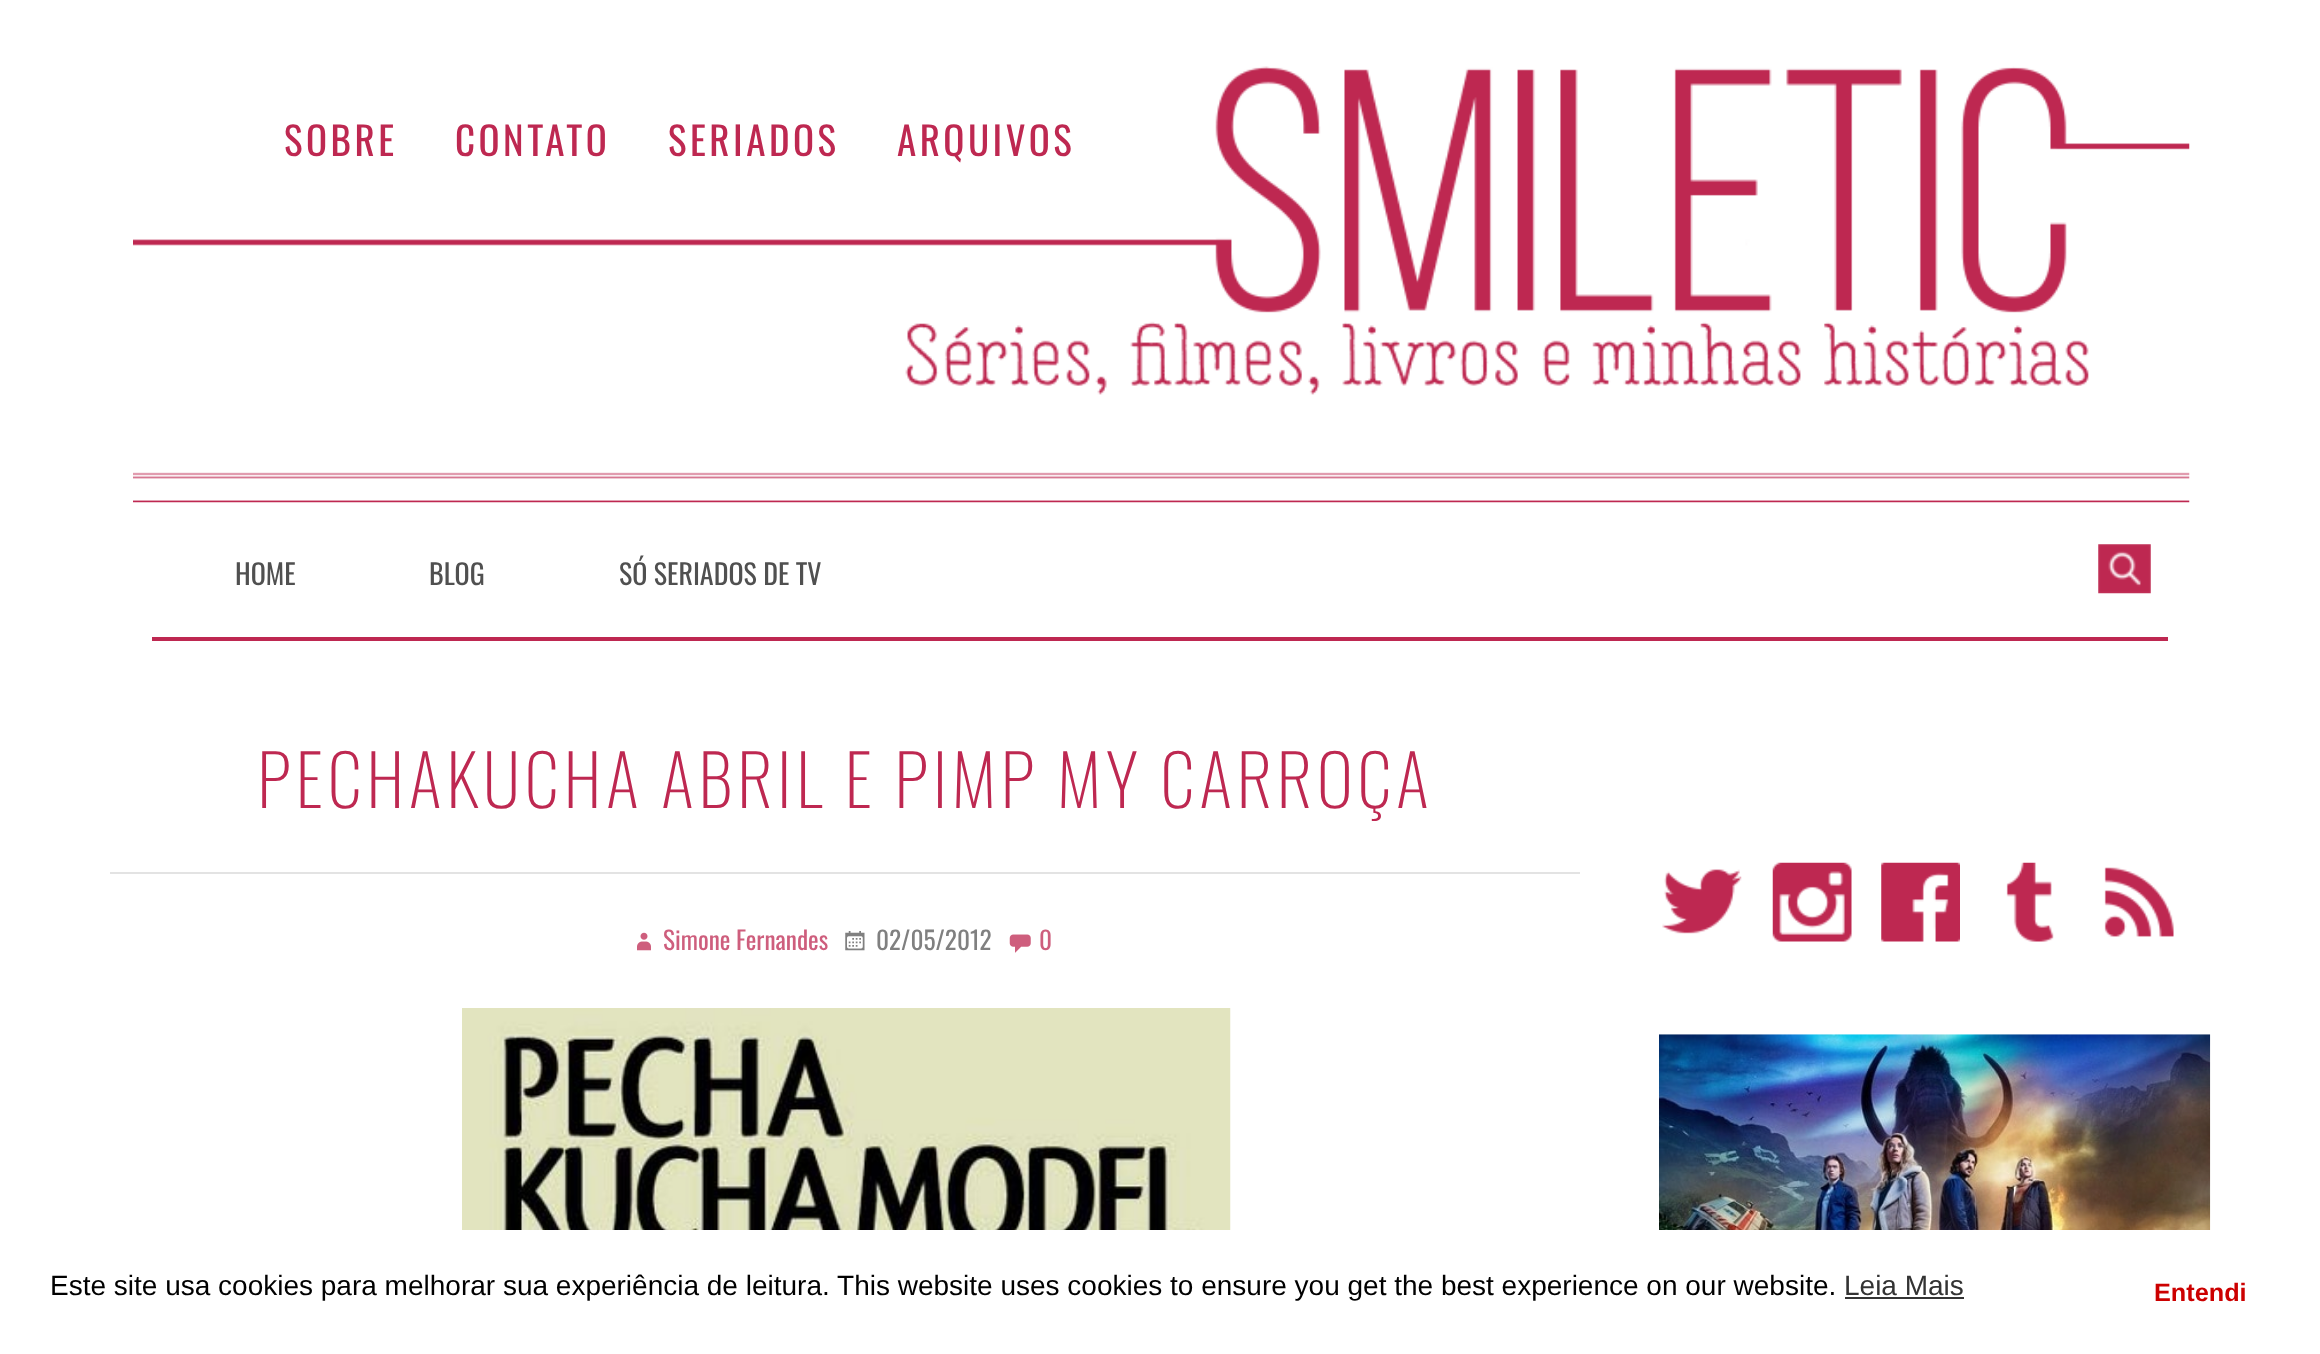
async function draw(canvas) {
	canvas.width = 2320;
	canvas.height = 1354;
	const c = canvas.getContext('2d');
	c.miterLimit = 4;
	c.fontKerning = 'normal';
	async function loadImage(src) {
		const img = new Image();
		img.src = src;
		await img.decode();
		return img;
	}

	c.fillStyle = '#fff';
	c.fillRect(0, 0, 2320, 1354);
	c.drawImage(await loadImage('img1.png'), 133, 66, 2057, 437);
	c.letterSpacing = '3.5px';
	c.font = '39px Oswald';
	c.fillStyle = '#be2851';
	for (const [text, x, y] of [
		['SOBRE', 284, 156],
		['CONTATO', 455, 156],
		['SERIADOS', 668, 156],
		['ARQUIVOS', 897, 156],
	]) {
		c.fillText(text, x, y);
	}
	c.fillRect(152, 637, 2016, 4);
	c.letterSpacing = '0px';
	c.font = '28px Oswald';
	c.fillStyle = '#505050';
	for (const [text, x, y] of [
		['HOME', 235, 585],
		['BLOG', 429, 585],
		['SÓ SERIADOS DE TV', 619, 585],
	]) {
		c.fillText(text, x, y);
	}
	c.drawImage(await loadImage('img2.png'), 2098, 544, 53, 50);
	c.fillStyle = '#e3e3e3';
	c.fillRect(110, 872, 1470, 2);
	c.letterSpacing = '4.55px';
	c.font = '200 70px Oswald';
	c.fillStyle = '#be2851';
	c.fillText('PECHAKUCHA ABRIL E PIMP MY CARROÇA', 257, 808);
	c.drawImage(await loadImage('img3.png'), 637, 932, 14, 19);
	c.letterSpacing = '0px';
	c.font = '25.25px Oswald';
	c.fillStyle = '#ce5e7d';
	c.fillText('Simone Fernandes', 663, 950);
	c.drawImage(await loadImage('img4.png'), 845, 931, 20, 20);
	c.fillStyle = '#808080';
	c.fillText('02/05/2012', 876, 950);
	c.drawImage(await loadImage('img5.png'), 1009, 934, 22, 19);
	c.fillStyle = '#ce5e7d';
	c.fillText('0', 1039, 950);
	c.drawImage(await loadImage('img6.png'), 462, 1008, 769, 222);
	c.drawImage(await loadImage('img7.png'), 1662, 869, 80, 65);
	c.drawImage(await loadImage('img8.png'), 1772, 862, 80, 80);
	c.drawImage(await loadImage('img9.png'), 1881, 862, 79, 80);
	c.drawImage(await loadImage('img10.png'), 2006, 862, 48, 80);
	c.drawImage(await loadImage('img11.png'), 2104, 867, 70, 70);
	c.drawImage(await loadImage('img12.png'), 1659, 1034, 552, 196);
	c.font = '28px Liberation Sans';
	c.fillStyle = '#000';
	c.fillText('Este site usa cookies para melhorar sua experiência de leitura. This website uses cookies to ensure you get the best experience on our website.', 50, 1295);
	c.fillStyle = '#333';
	c.fillText('Leia Mais', 1844, 1295);
	c.fillRect(1845, 1297, 119, 2);
	c.font = 'bold 25.25px Liberation Sans';
	c.fillStyle = '#c00';
	c.fillText('Entendi', 2154, 1301);
}

draw(document.querySelector('canvas'));
